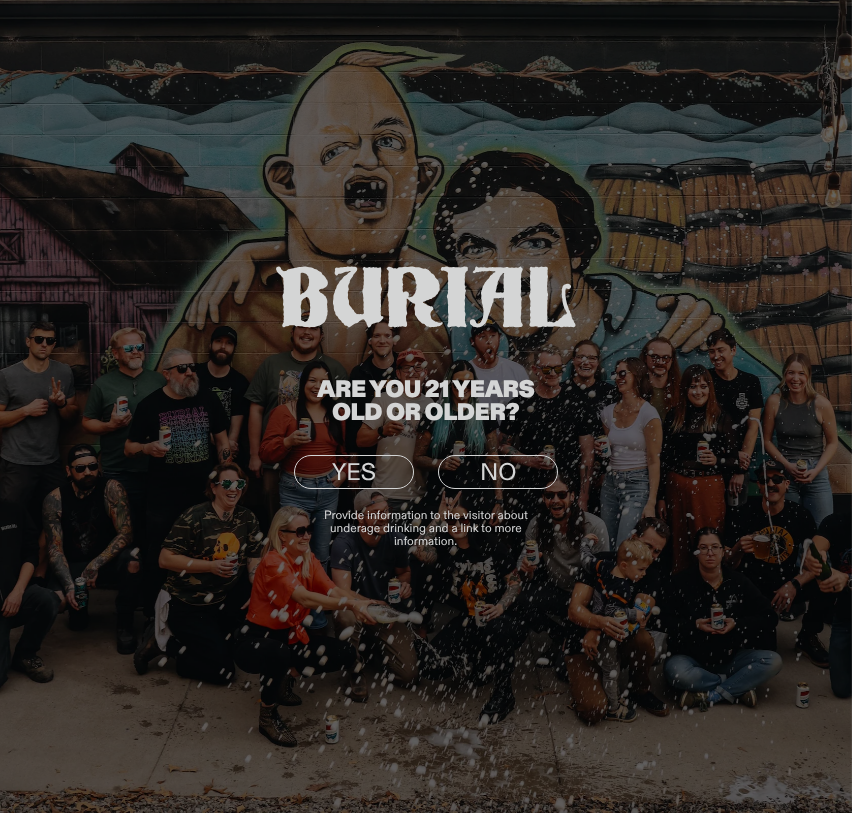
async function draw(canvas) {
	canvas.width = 852;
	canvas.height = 813;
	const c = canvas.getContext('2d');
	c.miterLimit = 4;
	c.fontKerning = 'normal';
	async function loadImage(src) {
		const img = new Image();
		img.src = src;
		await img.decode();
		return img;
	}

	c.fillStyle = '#fff';
	c.fillRect(0, 0, 852, 813);
	c.drawImage(await loadImage('img1.png'), 0, 0, 852, 813);
	c.drawImage(await loadImage('img2.png'), 276, 266, 300, 62);
	c.letterSpacing = '-0.5px';
	c.font = '900 24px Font';
	c.fillStyle = '#d4d5d5';
	c.fillText('ARE YOU 21 YEARS', 317, 397);
	c.fillText('OLD OR OLDER?', 332, 420);
	c.beginPath();
	c.roundRect(294.5, 455.5, 119, 33, 16.5);
	c.strokeStyle = '#d4d5d5';
	c.stroke();
	c.letterSpacing = '0px';
	c.font = '24px Font';
	c.fillText('YES', 332, 480);
	c.beginPath();
	c.roundRect(438.5, 455.5, 119, 33, 16.5);
	c.stroke();
	c.fillText('NO', 480, 480);
	c.font = '12px Font';
	for (const [text, x, y] of [
		['Provide information to the visitor about', 324, 519],
		['underage drinking and a link to more', 330, 532],
		['information.', 394, 545],
	]) {
		c.fillText(text, x, y);
	}
}

draw(document.querySelector('canvas'));
